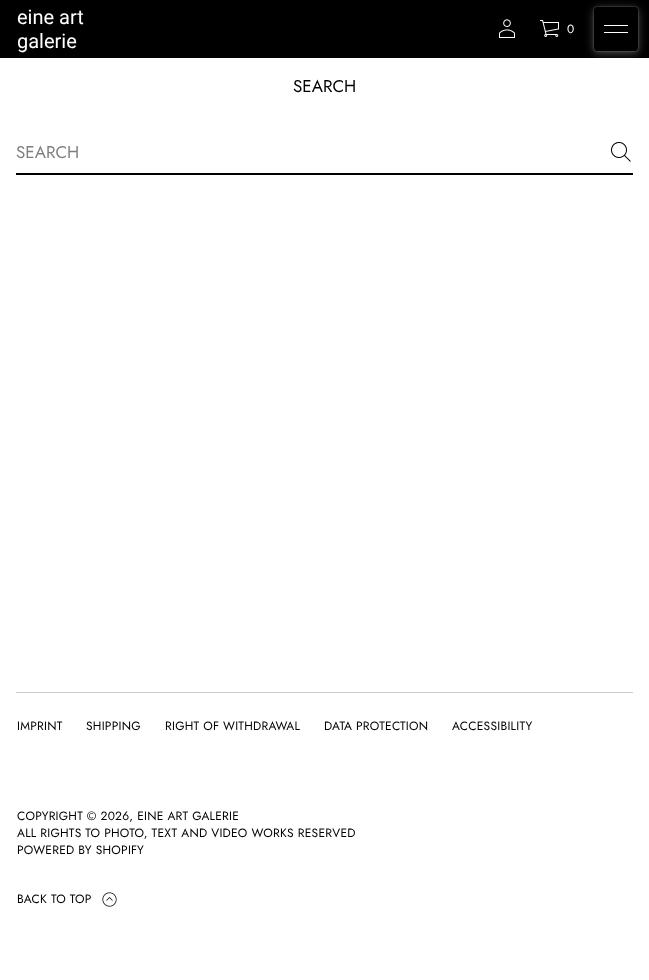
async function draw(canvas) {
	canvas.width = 649;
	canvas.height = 980;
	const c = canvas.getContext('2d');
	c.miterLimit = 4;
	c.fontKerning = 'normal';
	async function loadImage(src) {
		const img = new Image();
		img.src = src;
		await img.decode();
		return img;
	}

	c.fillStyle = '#fff';
	c.fillRect(0, 0, 649, 980);
	c.fillStyle = '#000';
	c.fillRect(0, 0, 649, 58);
	c.font = '20px Roboto';
	c.fillStyle = '#fff';
	c.fillText('eine art', 17, 24);
	c.fillText('galerie', 17, 48);
	c.drawImage(await loadImage('img1.png'), 499, 19, 16, 19);
	c.drawImage(await loadImage('img2.png'), 540, 20, 19, 17);
	c.letterSpacing = '0.25px';
	c.font = '12px Jost';
	c.fillText('0', 567, 33);
	c.save();
	c.beginPath();
	c.rect(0, 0, 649, 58);
	c.clip();
	c.beginPath();
	c.moveTo(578, 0);
	c.lineTo(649, 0);
	c.lineTo(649, 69);
	c.lineTo(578, 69);
	c.closePath();
	c.moveTo(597, 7);
	c.lineTo(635, 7);
	c.bezierCurveTo(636.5, 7, 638, 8.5, 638, 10);
	c.lineTo(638, 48);
	c.bezierCurveTo(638, 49.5, 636.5, 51, 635, 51);
	c.lineTo(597, 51);
	c.bezierCurveTo(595.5, 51, 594, 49.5, 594, 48);
	c.lineTo(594, 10);
	c.bezierCurveTo(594, 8.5, 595.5, 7, 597, 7);
	c.closePath();
	c.clip('evenodd');
	c.fillStyle = '#ffffff4d';
	c.filter = 'blur(5px)';
	c.beginPath();
	c.roundRect(594, 9, 44, 44, 3);
	c.fill();
	c.filter = 'none';
	c.restore();
	c.save();
	c.beginPath();
	c.moveTo(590, 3);
	c.lineTo(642, 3);
	c.lineTo(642, 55);
	c.lineTo(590, 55);
	c.closePath();
	c.moveTo(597, 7);
	c.lineTo(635, 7);
	c.bezierCurveTo(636.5, 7, 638, 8.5, 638, 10);
	c.lineTo(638, 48);
	c.bezierCurveTo(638, 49.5, 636.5, 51, 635, 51);
	c.lineTo(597, 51);
	c.bezierCurveTo(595.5, 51, 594, 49.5, 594, 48);
	c.lineTo(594, 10);
	c.bezierCurveTo(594, 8.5, 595.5, 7, 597, 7);
	c.closePath();
	c.clip('evenodd');
	c.fillStyle = '#ffffff4d';
	c.filter = 'blur(1px)';
	c.beginPath();
	c.roundRect(594, 7, 44, 44, 3);
	c.fill();
	c.filter = 'none';
	c.restore();
	c.beginPath();
	c.moveTo(604, 25);
	c.lineTo(604, 26);
	c.lineTo(628, 26);
	c.lineTo(628, 25);
	c.closePath();
	c.moveTo(604, 33);
	c.lineTo(628, 33);
	c.lineTo(628, 32);
	c.lineTo(604, 32);
	c.closePath();
	c.fill();
	c.letterSpacing = '0px';
	c.font = '17px Jost';
	c.fillStyle = '#000';
	c.fillText('SEARCH', 293, 92);
	c.fillRect(16, 173, 617, 2);
	c.fillStyle = '#808080';
	c.fillText('SEARCH', 16, 158);
	c.drawImage(await loadImage('img3.png'), 611, 142, 20, 20);
	c.fillStyle = '#ccc';
	c.fillRect(16, 692, 617, 1);
	c.letterSpacing = '0.25px';
	c.font = '12px Jost';
	c.fillStyle = '#000';
	for (const [text, x, y] of [
		['IMPRINT', 17, 730],
		['SHIPPING', 86, 730],
		['RIGHT OF WITHDRAWAL', 165, 730],
		['DATA PROTECTION', 324, 730],
		['ACCESSIBILITY', 452, 730],
		['COPYRIGHT © 2026, EINE ART GALERIE', 17, 820],
		['ALL RIGHTS TO PHOTO, TEXT AND VIDEO WORKS RESERVED', 17, 837],
		['POWERED BY SHOPIFY', 17, 854],
		['BACK TO TOP', 17, 903],
	]) {
		c.fillText(text, x, y);
	}
	c.drawImage(await loadImage('img4.png'), 102, 892, 15, 15);
}

draw(document.querySelector('canvas'));
